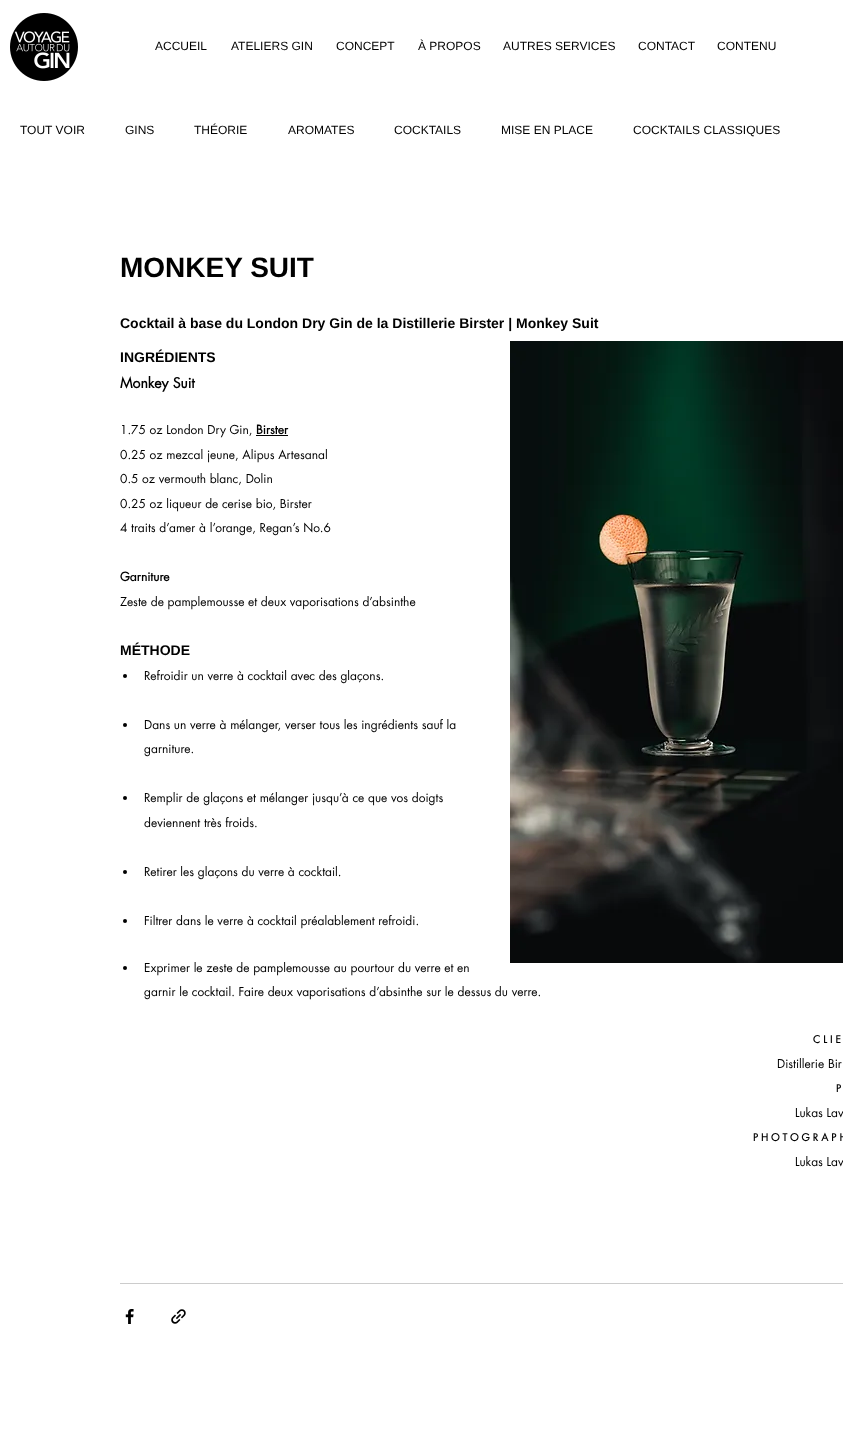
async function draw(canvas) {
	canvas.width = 843;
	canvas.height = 1434;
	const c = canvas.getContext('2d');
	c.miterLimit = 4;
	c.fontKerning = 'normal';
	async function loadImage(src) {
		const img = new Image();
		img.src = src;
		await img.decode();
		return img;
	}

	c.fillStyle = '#fff';
	c.fillRect(0, 0, 843, 1434);
	c.drawImage(await loadImage('img1.png'), 10, 13, 68, 68);
	c.font = '12px Liberation Sans';
	c.fillStyle = '#000';
	for (const [text, x, y] of [
		['ACCUEIL', 155, 50],
		['ATELIERS GIN', 231, 50],
		['CONCEPT', 336, 50],
		['À PROPOS', 418, 50],
		['AUTRES SERVICES', 503, 50],
		['CONTACT', 638, 50],
		['CONTENU', 717, 50],
		['TOUT VOIR', 20, 134],
		['GINS', 125, 134],
		['THÉORIE', 194, 134],
		['AROMATES', 288, 134],
		['COCKTAILS', 394, 134],
		['MISE EN PLACE', 501, 134],
		['COCKTAILS CLASSIQUES', 633, 134],
	]) {
		c.fillText(text, x, y);
	}
	c.font = 'bold 28px Liberation Sans';
	c.fillText('MONKEY SUIT', 120, 277);
	c.font = 'bold 14px Liberation Sans';
	c.fillText('Cocktail à base du London Dry Gin de la Distillerie Birster | Monkey Suit', 120, 328);
	c.fillText('INGRÉDIENTS', 120, 362);
	c.drawImage(await loadImage('img2.png'), 510, 341, 333, 622);
	c.font = 'bold 14px futura';
	c.fillText('Monkey Suit', 120, 388);
	c.font = '12px futura';
	c.fillText('1.75 oz London Dry Gin,', 120, 434);
	c.font = 'bold 12px futura';
	c.fillText('Birster', 256, 434);
	c.fillRect(256, 435, 32, 1);
	c.font = '12px futura';
	for (const [text, x, y] of [
		['0.25 oz mezcal jeune, Alipus Artesanal', 120, 459],
		['0.5 oz vermouth blanc, Dolin', 120, 483],
		['0.25 oz liqueur de cerise bio, Birster', 120, 508],
		['4 traits d’amer à l’orange, Regan’s No.6', 120, 532],
	]) {
		c.fillText(text, x, y);
	}
	c.font = 'bold 12px futura';
	c.fillText('Garniture', 120, 581);
	c.font = '12px futura';
	c.fillText('Zeste de pamplemousse et deux vaporisations d’absinthe', 120, 606);
	c.font = 'bold 14px Liberation Sans';
	c.fillText('MÉTHODE', 120, 655);
	c.beginPath();
	c.arc(125, 676, 2, 0, 2 * Math.PI);
	c.fill();
	c.font = '12px futura';
	c.fillText('Refroidir un verre à cocktail avec des glaçons.', 144, 680);
	c.beginPath();
	c.arc(125, 725, 2, 0, 2 * Math.PI);
	c.fill();
	c.fillText('Dans un verre à mélanger, verser tous les ingrédients sauf la', 144, 729);
	c.fillText('garniture.', 144, 753);
	c.beginPath();
	c.arc(125, 798, 2, 0, 2 * Math.PI);
	c.fill();
	c.fillText('Remplir de glaçons et mélanger jusqu’à ce que vos doigts', 144, 802);
	c.fillText('deviennent très froids.', 144, 827);
	c.beginPath();
	c.arc(125, 872, 2, 0, 2 * Math.PI);
	c.fill();
	c.fillText('Retirer les glaçons du verre à cocktail.', 144, 876);
	c.beginPath();
	c.arc(125, 921, 2, 0, 2 * Math.PI);
	c.fill();
	c.fillText('Filtrer dans le verre à cocktail préalablement refroidi.', 144, 925);
	c.beginPath();
	c.arc(125, 968, 2, 0, 2 * Math.PI);
	c.fill();
	c.fillText('Exprimer le zeste de pamplemousse au pourtour du verre et en', 144, 972);
	c.fillText('garnir le cocktail. Faire deux vaporisations d’absinthe sur le dessus du verre.', 144, 996);
	c.font = 'bold 10px futura';
	c.fillText('C L I E', 813, 1043);
	c.font = '12px futura';
	c.fillText('Distillerie Bir', 777, 1068);
	c.font = 'bold 10px futura';
	c.fillText('P', 836, 1092);
	c.font = '12px futura';
	c.fillText('Lukas Lav', 795, 1117);
	c.font = 'bold 10px futura';
	c.fillText('P H O T O G R A P H', 753, 1141);
	c.font = '12px futura';
	c.fillText('Lukas Lav', 795, 1166);
	c.fillStyle = '#ccc';
	c.fillRect(120, 1283, 723, 1);
	c.drawImage(await loadImage('img3.png'), 125, 1309, 9, 15);
	c.drawImage(await loadImage('img4.png'), 171, 1309, 15, 15);
}

draw(document.querySelector('canvas'));
